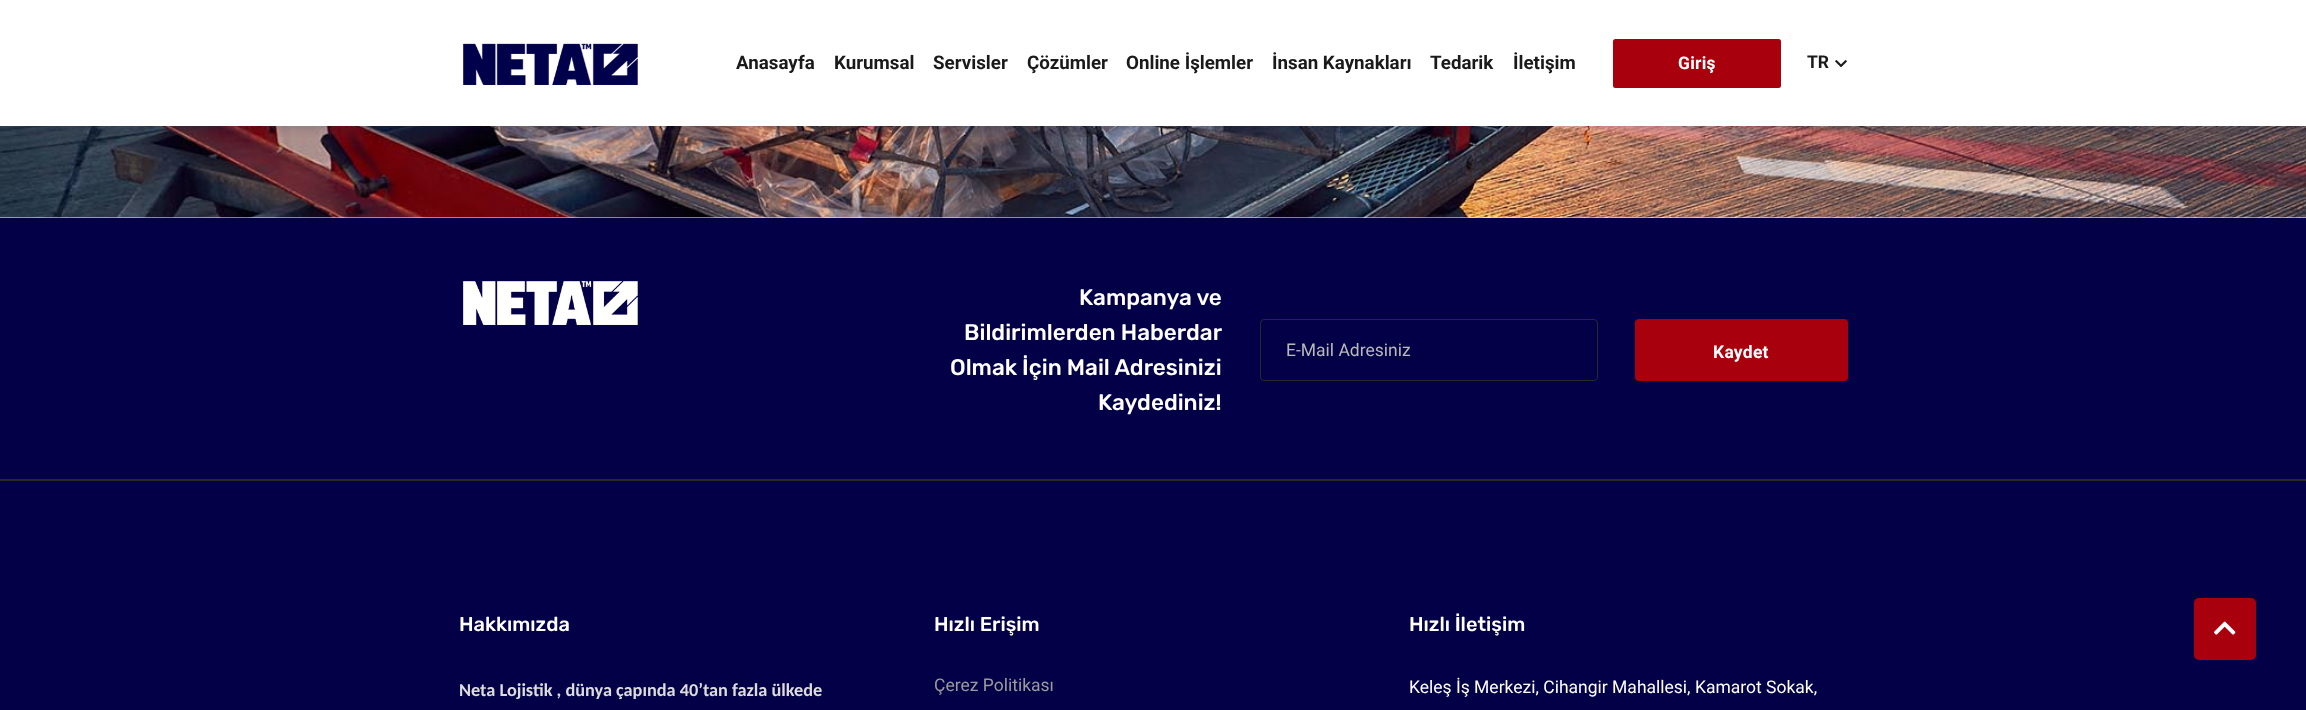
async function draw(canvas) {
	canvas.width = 2306;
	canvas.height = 710;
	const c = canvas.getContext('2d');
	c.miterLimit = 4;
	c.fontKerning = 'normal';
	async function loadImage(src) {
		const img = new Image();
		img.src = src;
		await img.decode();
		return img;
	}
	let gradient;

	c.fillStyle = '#fff';
	c.fillRect(0, 0, 2306, 710);
	c.drawImage(await loadImage('img3.png'), 0, 126, 2306, 92);
	gradient = c.createLinearGradient(1153, -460, 1153, 218);
	gradient.addColorStop(0, '#040048');
	gradient.addColorStop(0.9, '#04004800');
	c.fillStyle = gradient;
	c.fillRect(9, 126, 2297, 11);
	c.fillStyle = '#031b4e1a';
	c.filter = 'blur(2.5px)';
	c.beginPath();
	c.rect(0, 3, 2306, 126);
	c.fill();
	c.filter = 'none';
	c.fillStyle = '#fff';
	c.fillRect(0, 0, 2306, 126);
	c.drawImage(await loadImage('img1.png'), 463, 43, 175, 42);
	c.font = 'bold 18.75px Roboto';
	c.fillStyle = '#1b1a1a';
	for (const [text, x, y] of [
		['Anasayfa', 736, 69],
		['Kurumsal', 834, 69],
		['Servisler', 933, 69],
		['Çözümler', 1027, 69],
		['Online İşlemler', 1126, 69],
		['İnsan Kaynakları', 1272, 69],
		['Tedarik', 1430, 69],
		['İletişim', 1513, 69],
	]) {
		c.fillText(text, x, y);
	}
	c.fillStyle = '#a9000d';
	c.beginPath();
	c.roundRect(1614.5, 40.5, 165, 46, 1);
	c.fill();
	c.strokeStyle = '#a9000d';
	c.lineWidth = 3;
	c.stroke();
	c.letterSpacing = '0.25px';
	c.font = 'bold 17.5px Roboto';
	c.fillStyle = '#fff';
	c.fillText('Giriş', 1678, 69);
	c.letterSpacing = '0px';
	c.fillStyle = '#1b1a1a';
	c.fillText('TR', 1807, 68);
	c.drawImage(await loadImage('img2.png'), 1835, 60, 12, 8);
	c.fillStyle = '#040048';
	c.fillRect(0, 218, 2306, 261);
	c.fillStyle = '#292929';
	c.fillRect(0, 479, 2306, 2);
	c.drawImage(await loadImage('img4.png'), 463, 281, 175, 44);
	c.font = '500 22.5px Rubik';
	c.fillStyle = '#fff';
	for (const [text, x, y] of [
		['Kampanya ve', 1079, 305],
		['Bildirimlerden Haberdar', 964, 340],
		['Olmak İçin Mail Adresinizi', 950, 375],
		['Kaydediniz!', 1098, 410],
	]) {
		c.fillText(text, x, y);
	}
	c.beginPath();
	c.roundRect(1260.5, 319.5, 337, 61, 3.5);
	c.strokeStyle = '#292929';
	c.lineWidth = 1;
	c.stroke();
	c.font = '17.5px Roboto';
	c.fillStyle = '#b9b9b9';
	c.fillText('E-Mail Adresiniz', 1286, 356);
	c.fillStyle = '#a9000d';
	c.beginPath();
	c.roundRect(1636.5, 320.5, 210, 59, 2.5);
	c.fill();
	c.strokeStyle = '#a9000d';
	c.lineWidth = 3;
	c.stroke();
	c.letterSpacing = '0.25px';
	c.font = 'bold 17.5px Roboto';
	c.fillStyle = '#fff';
	c.fillText('Kaydet', 1713, 358);
	c.fillStyle = '#040048';
	c.fillRect(0, 481, 2306, 229);
	c.letterSpacing = '0px';
	c.font = '500 20px Rubik';
	c.fillStyle = '#fff';
	c.fillText('Hakkımızda', 459, 631);
	c.font = 'bold 18.3px Carlito';
	c.fillStyle = '#ddd';
	c.fillText('Neta Lojistik , dünya çapında 40’tan fazla ülkede', 459, 696);
	c.font = '500 20px Rubik';
	c.fillStyle = '#fff';
	c.fillText('Hızlı Erişim', 934, 631);
	c.font = '17.5px Roboto';
	c.fillStyle = '#9b9b9b';
	c.fillText('Çerez Politikası', 934, 691);
	c.font = '500 20px Rubik';
	c.fillStyle = '#fff';
	c.fillText('Hızlı İletişim', 1409, 631);
	c.font = '17.5px Roboto';
	c.fillText('Keleş İş Merkezi, Cihangir Mahallesi, Kamarot Sokak,', 1409, 693);
	c.fillStyle = '#a9000d';
	c.beginPath();
	c.roundRect(2194, 598, 62, 62, 5);
	c.fill();
	c.drawImage(await loadImage('img5.png'), 2214, 621, 22, 14);
}

draw(document.querySelector('canvas'));
